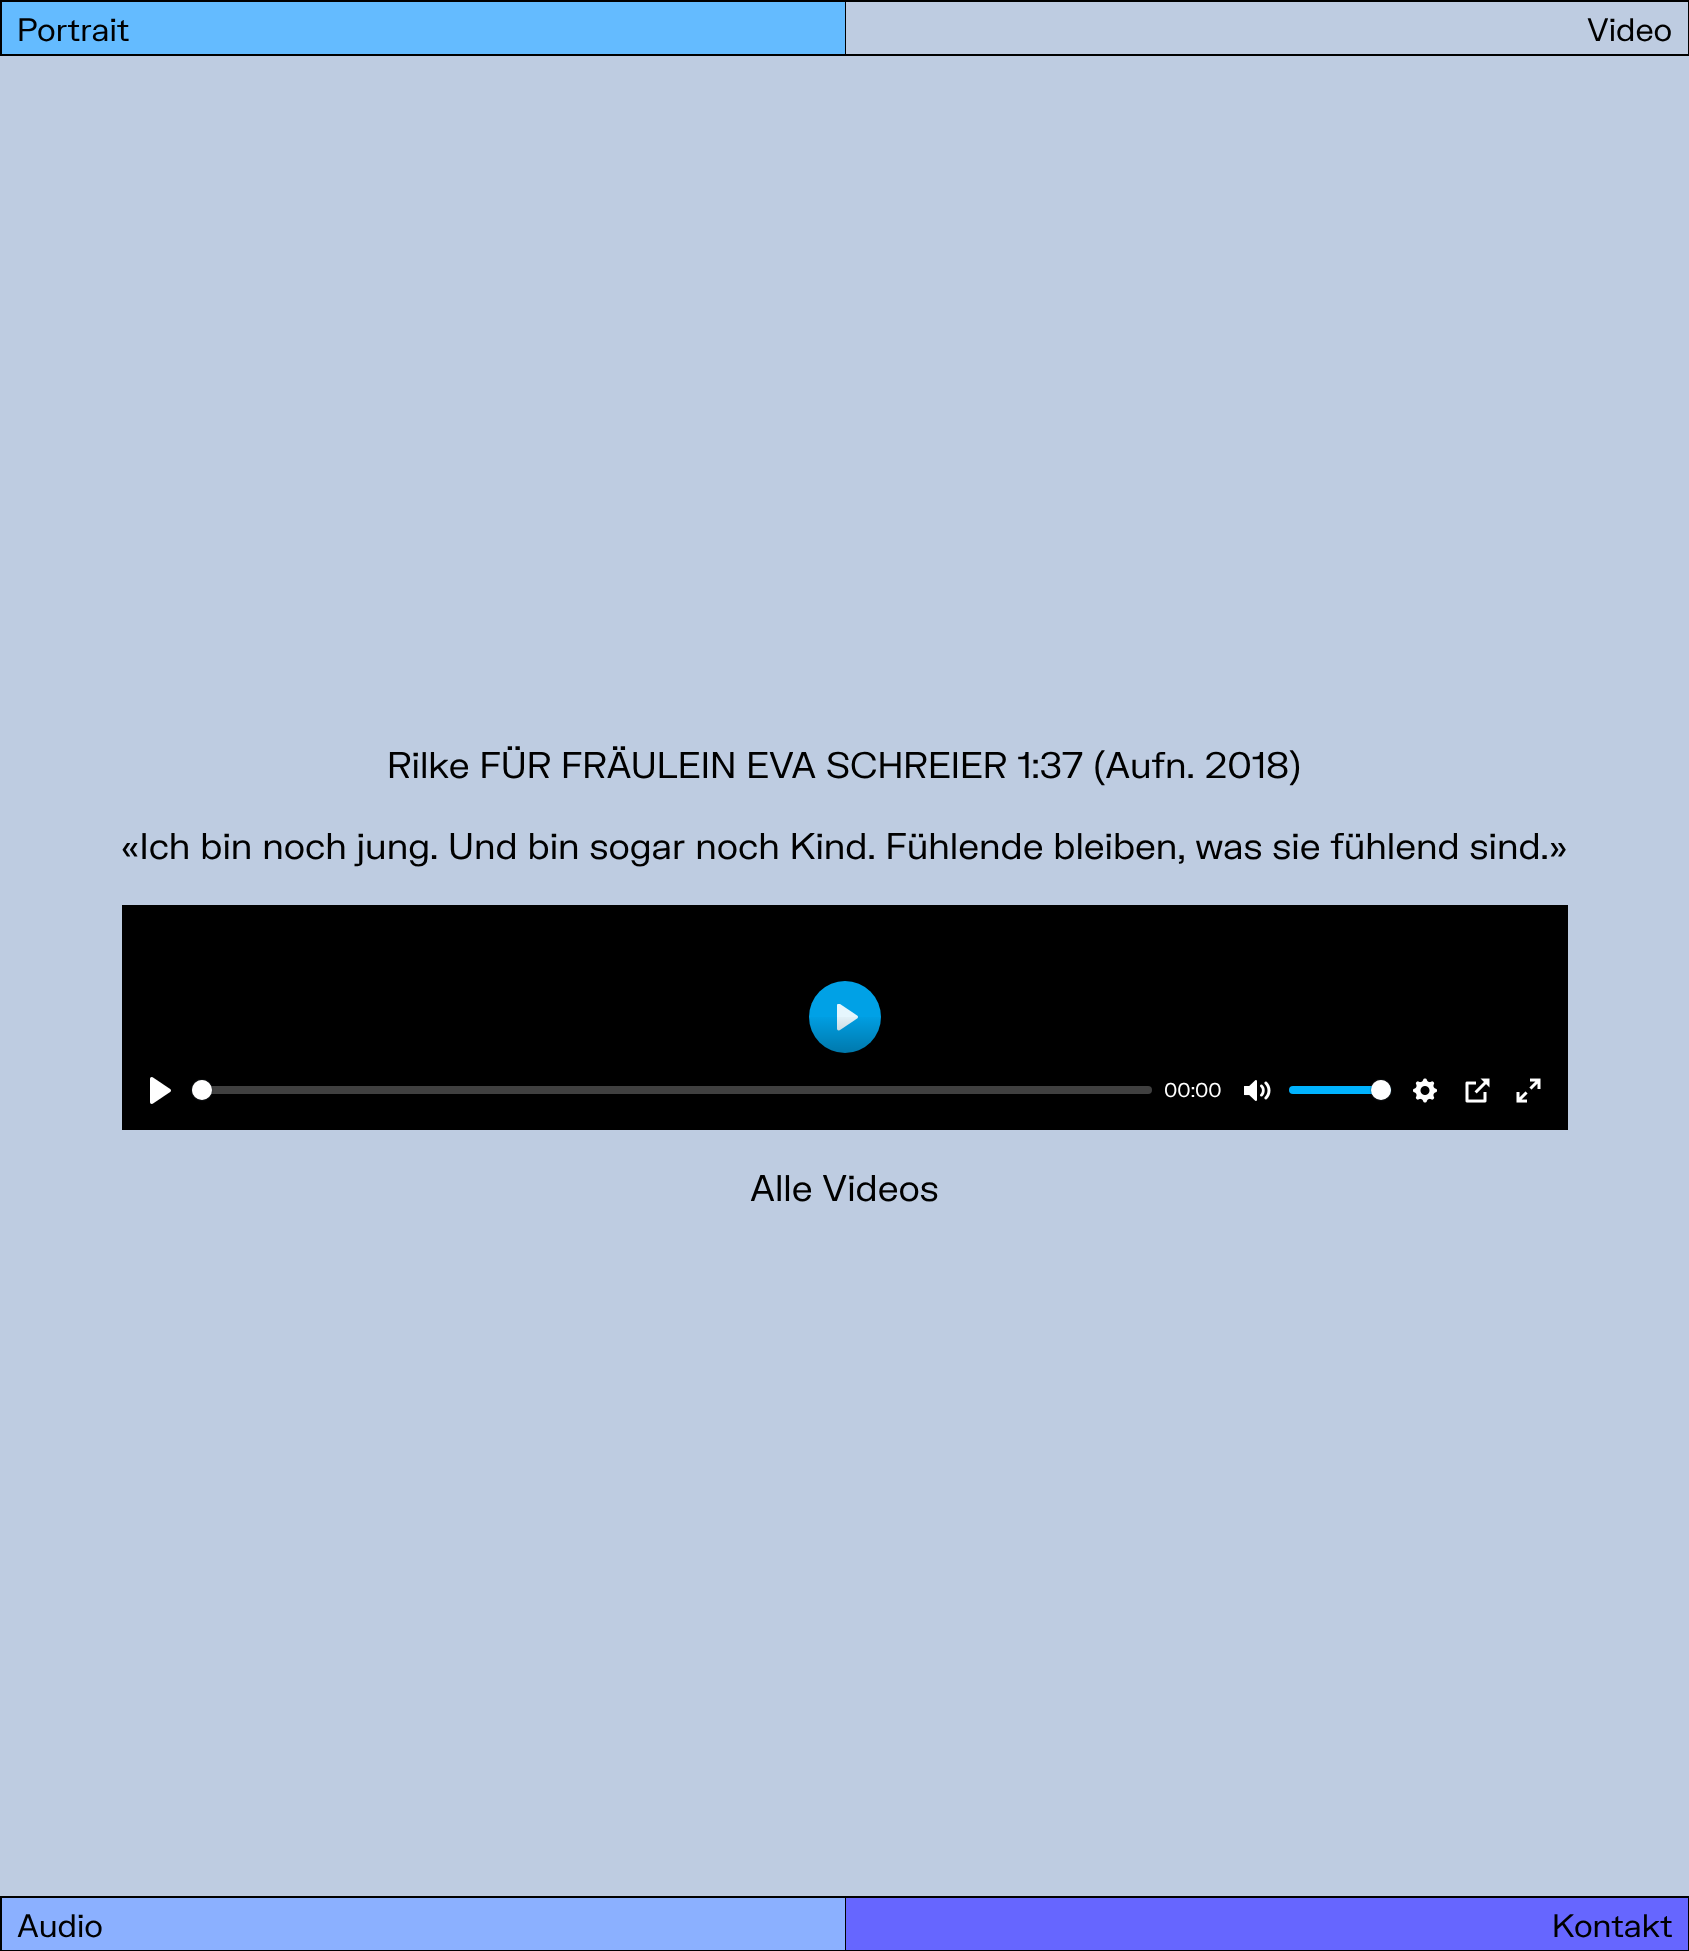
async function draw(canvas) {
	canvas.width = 1689;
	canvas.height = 1951;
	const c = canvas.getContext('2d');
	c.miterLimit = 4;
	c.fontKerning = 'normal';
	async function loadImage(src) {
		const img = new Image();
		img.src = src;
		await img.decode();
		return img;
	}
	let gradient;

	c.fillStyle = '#becce1';
	c.fillRect(0, 0, 1689, 1951);
	c.strokeStyle = '#000';
	c.lineWidth = 2;
	c.strokeRect(1, 1, 1687, 54);
	c.fillStyle = '#64bbff';
	c.fillRect(2, 2, 843, 52);
	c.fillStyle = '#000';
	c.fillRect(845, 2, 1, 52);
	c.font = '31.5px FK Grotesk';
	c.fillText('Portrait', 17, 41);
	c.fillStyle = '#becce1';
	c.fillRect(1687, 2, 1, 52);
	c.fillStyle = '#000';
	c.fillText('Video', 1587, 41);
	c.font = '36px FK Grotesk';
	c.fillText('Rilke FÜR FRÄULEIN EVA SCHREIER 1:37 (Aufn. 2018)', 387, 778);
	c.fillText('«Ich bin noch jung. Und bin sogar noch Kind. Fühlende bleiben, was sie fühlend sind.»', 121, 859);
	c.fillRect(122, 905, 1446, 225);
	c.fillStyle = '#00a1e6';
	c.beginPath();
	c.arc(845, 1017, 36, 0, 2 * Math.PI);
	c.fill();
	c.drawImage(await loadImage('img1.png'), 837, 1004, 21, 27);
	c.drawImage(await loadImage('img2.png'), 190, 1079, 1202, 22);
	gradient = c.createLinearGradient(845, 1014, 845, 1130);
	gradient.addColorStop(0, '#00000000');
	gradient.addColorStop(1, '#000000bf');
	c.fillStyle = gradient;
	c.fillRect(191, 1017, 1201, 84);
	c.drawImage(await loadImage('img3.png'), 150, 1077, 21, 27);
	c.fillStyle = '#ffffff40';
	c.beginPath();
	c.roundRect(192, 1086, 960, 8, 4);
	c.fill();
	c.beginPath();
	c.arc(202, 1090, 10, 0, 2 * Math.PI);
	c.strokeStyle = '#23282f33';
	c.stroke();
	c.fillStyle = '#23282f26';
	c.filter = 'blur(1px)';
	c.beginPath();
	c.roundRect(192, 1082, 20, 19, 9.5);
	c.fill();
	c.filter = 'none';
	c.fillStyle = '#fff';
	c.beginPath();
	c.arc(202, 1090, 10, 0, 2 * Math.PI);
	c.fill();
	c.font = '19.5px FK Grotesk';
	c.fillText('00:00', 1164, 1097);
	c.drawImage(await loadImage('img4.png'), 1244, 1080, 27, 21);
	c.fillStyle = '#00b3ff';
	c.beginPath();
	c.roundRect(1289, 1086, 102, 8, 4);
	c.fill();
	c.beginPath();
	c.arc(1381, 1090, 10, 0, 2 * Math.PI);
	c.stroke();
	c.fillStyle = '#23282f26';
	c.filter = 'blur(1px)';
	c.beginPath();
	c.roundRect(1371, 1082, 20, 19, 9.5);
	c.fill();
	c.filter = 'none';
	c.fillStyle = '#fff';
	c.beginPath();
	c.arc(1381, 1090, 10, 0, 2 * Math.PI);
	c.fill();
	c.drawImage(await loadImage('img5.png'), 1413, 1078, 24, 25);
	c.drawImage(await loadImage('img6.png'), 1465, 1078, 25, 25);
	c.drawImage(await loadImage('img7.png'), 1516, 1078, 25, 25);
	c.font = '36px FK Grotesk';
	c.fillStyle = '#000';
	c.fillText('Alle Videos', 750, 1201);
	c.strokeStyle = '#000';
	c.strokeRect(1, 1897, 1687, 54);
	c.fillStyle = '#8bb0ff';
	c.fillRect(2, 1898, 843, 52);
	c.fillStyle = '#000';
	c.fillRect(845, 1898, 1, 52);
	c.font = '31.5px FK Grotesk';
	c.fillText('Audio', 17, 1937);
	c.fillStyle = '#66f';
	c.fillRect(846, 1898, 842, 52);
	c.fillStyle = '#000';
	c.fillText('Kontakt', 1552, 1937);
}

draw(document.querySelector('canvas'));
